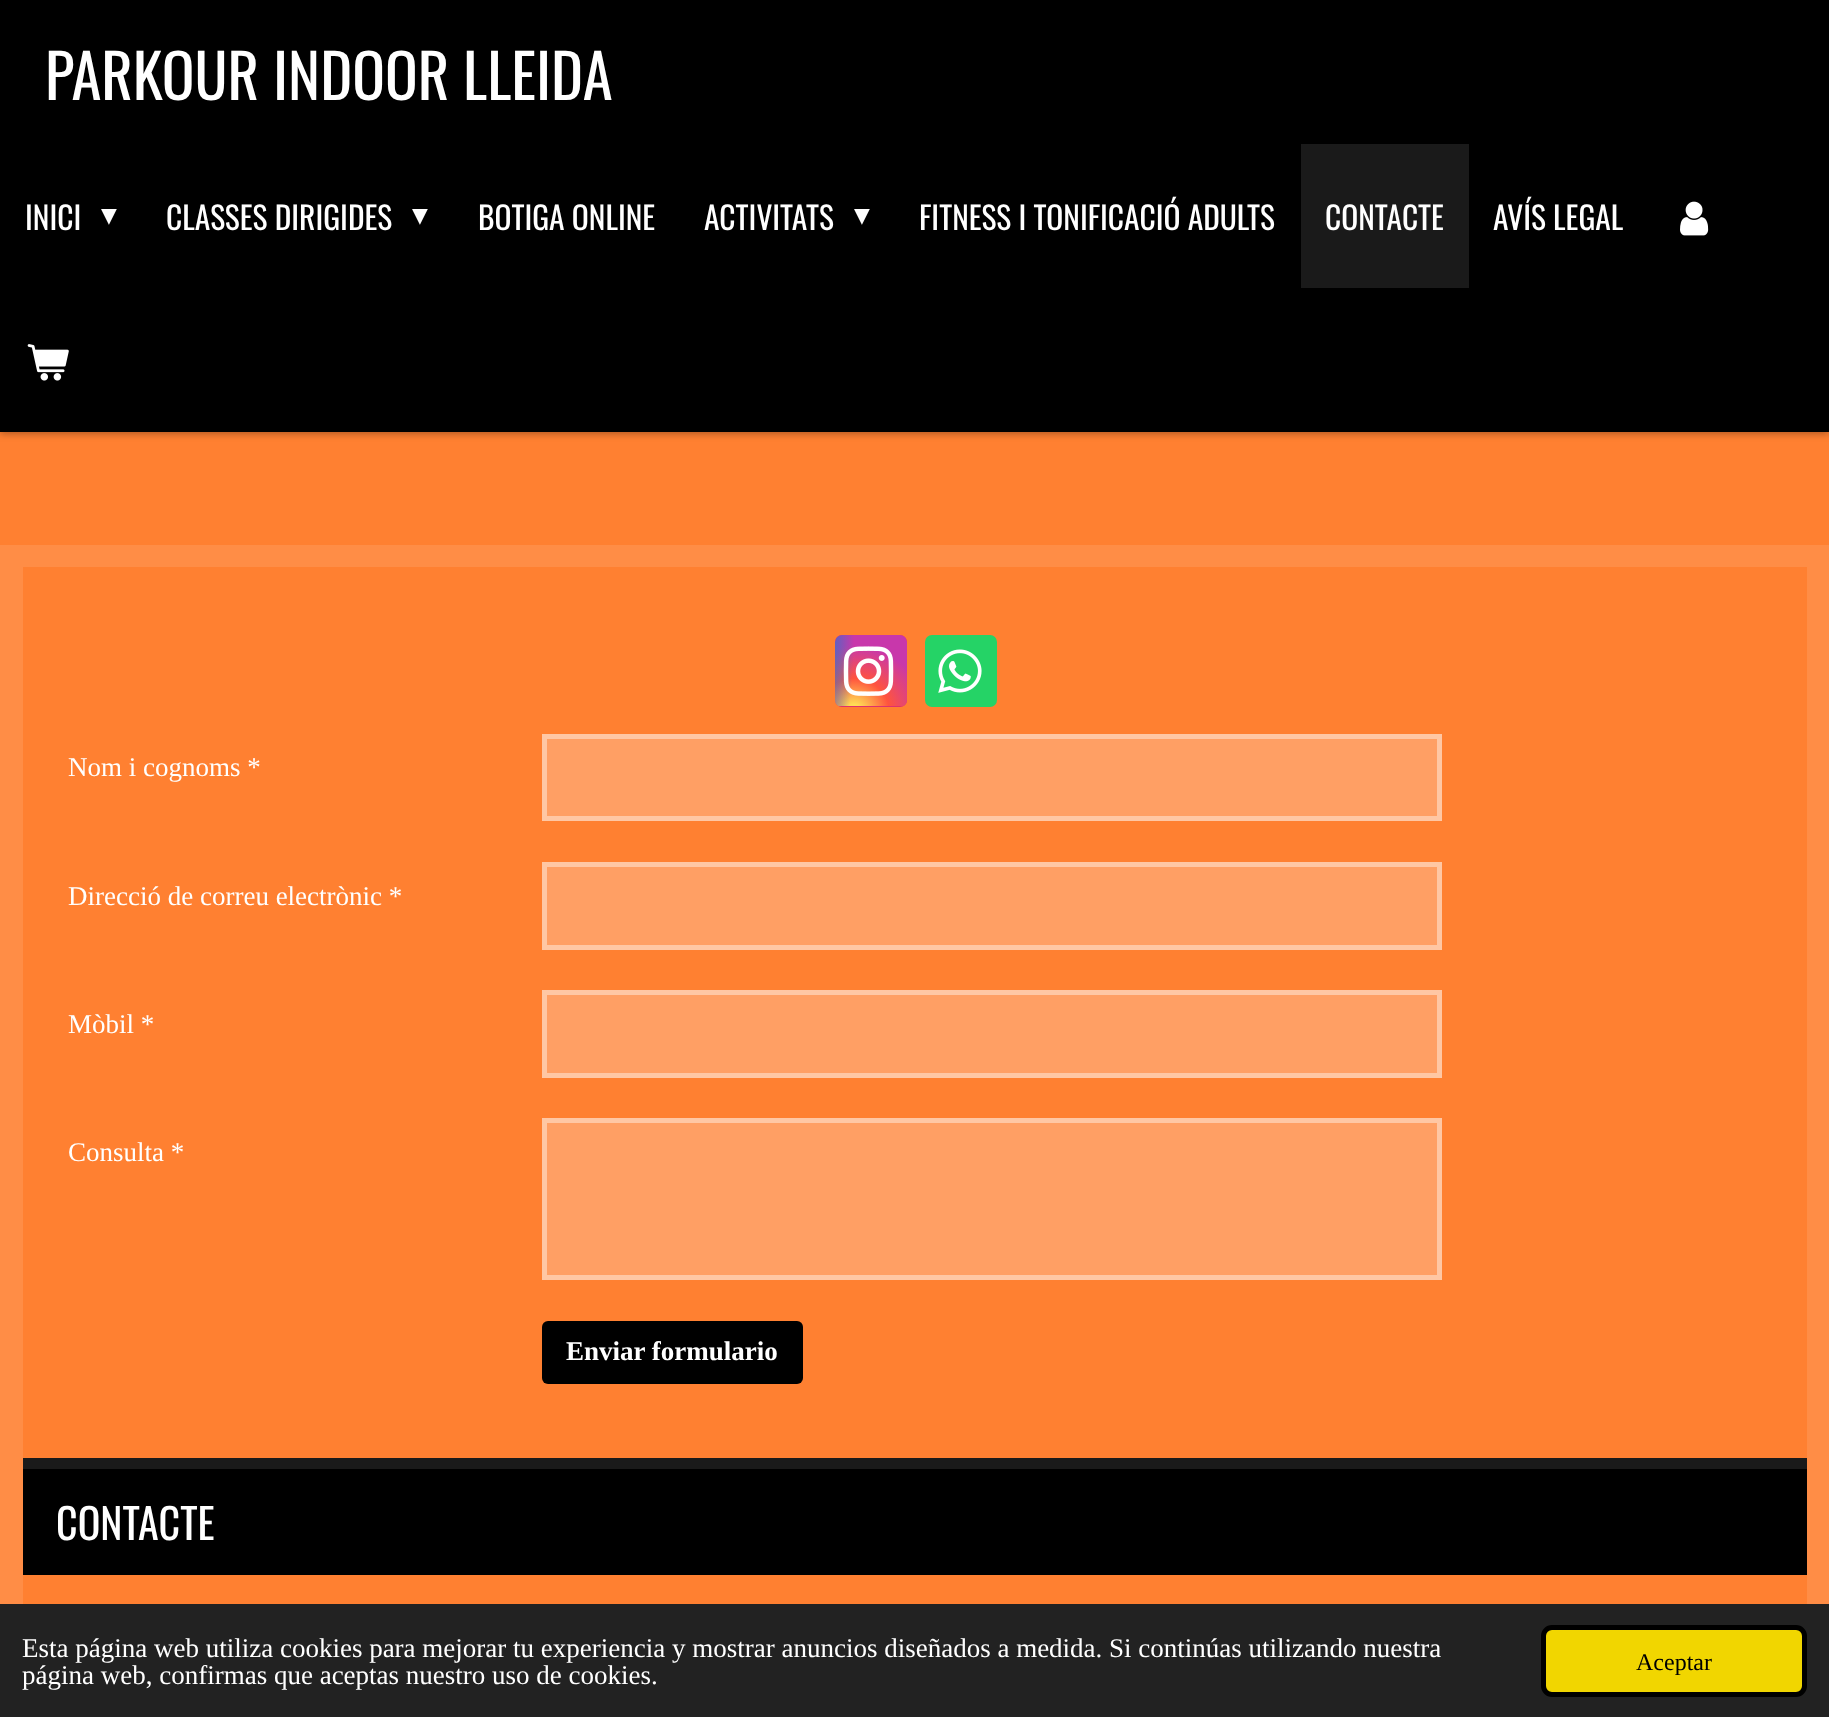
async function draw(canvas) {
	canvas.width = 1829;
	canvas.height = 1717;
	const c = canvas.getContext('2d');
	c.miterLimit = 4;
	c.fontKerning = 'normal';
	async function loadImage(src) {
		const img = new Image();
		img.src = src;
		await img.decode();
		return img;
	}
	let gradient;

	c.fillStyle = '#ff8031';
	c.fillRect(0, 0, 1829, 1717);
	c.fillStyle = '#0000004d';
	c.filter = 'blur(3.5px)';
	c.beginPath();
	c.rect(0, 2, 1829, 432);
	c.fill();
	c.filter = 'none';
	c.fillStyle = '#000';
	c.fillRect(0, 0, 1829, 432);
	c.font = '60.75px Oswald';
	c.fillStyle = '#fff';
	c.fillText('PARKOUR INDOOR LLEIDA', 45, 100);
	c.font = '31.5px Oswald';
	c.fillText('INICI', 25, 230);
	c.font = '31.5px DejaVu Sans';
	c.fillText('▾', 101, 225);
	c.font = '31.5px Oswald';
	c.fillText('CLASSES DIRIGIDES', 166, 230);
	c.font = '31.5px DejaVu Sans';
	c.fillText('▾', 412, 225);
	c.font = '31.5px Oswald';
	c.fillText('BOTIGA ONLINE', 478, 230);
	c.fillText('ACTIVITATS', 704, 230);
	c.font = '31.5px DejaVu Sans';
	c.fillText('▾', 854, 225);
	c.font = '31.5px Oswald';
	c.fillText('FITNESS I TONIFICACIÓ ADULTS', 919, 230);
	c.fillStyle = '#1a1a1a';
	c.fillRect(1301, 144, 168, 144);
	c.fillStyle = '#fff';
	c.fillText('CONTACTE', 1325, 230);
	c.fillText('AVÍS LEGAL', 1493, 230);
	c.drawImage(await loadImage('img1.png'), 1680, 201, 29, 35);
	c.drawImage(await loadImage('img2.png'), 27, 344, 42, 37);
	c.fillStyle = '#ff8d46';
	c.fillRect(0, 545, 1829, 1059);
	c.fillStyle = '#ff8031';
	c.fillRect(23, 567, 1784, 1037);
	c.fillStyle = '#e1306c';
	c.beginPath();
	c.roundRect(835, 635, 72, 72, 7);
	c.fill();
	c.save();
	c.beginPath();
	c.roundRect(835, 635, 72, 72, 7);
	c.clip();
	gradient = c.createRadialGradient(854, 765.69, 0, 854, 765.69, 70);
	gradient.addColorStop(0, '#fd5');
	gradient.addColorStop(0.1, '#fd5');
	gradient.addColorStop(0.5, '#ff543e');
	gradient.addColorStop(1, '#c837ab');
	c.fillStyle = gradient;
	c.beginPath();
	c.roundRect(835, 635, 72, 71, [7, 7, 0, 0]);
	c.save();
	c.clip();
	c.scale(1, 65 / 70);
	c.fillRect(0, 0, 1829, 1850);
	c.restore();
	gradient = c.createRadialGradient(823, 152.62, 0, 823, 152.62, 31);
	gradient.addColorStop(0, '#3771c8');
	gradient.addColorStop(0.13, '#3771c8');
	gradient.addColorStop(1, '#3771c800');
	c.fillStyle = gradient;
	c.beginPath();
	c.roundRect(835, 635, 72, 71, [7, 7, 0, 0]);
	c.save();
	c.clip();
	c.scale(1, 130 / 31);
	c.fillRect(0, 0, 1829, 410);
	c.restore();
	c.restore();
	c.drawImage(await loadImage('img3.png'), 843, 646, 51, 50);
	c.fillStyle = '#25d366';
	c.beginPath();
	c.roundRect(925, 635, 72, 72, 7);
	c.fill();
	c.drawImage(await loadImage('img4.png'), 938, 649, 44, 44);
	c.font = '27px Liberation Serif';
	c.fillStyle = '#fff';
	c.fillText('Nom i cognoms *', 68, 776);
	c.fillStyle = '#ff9f64';
	c.beginPath();
	c.rect(544.5, 736.5, 895, 82);
	c.fill();
	c.strokeStyle = '#ffc7a4';
	c.lineWidth = 5;
	c.stroke();
	c.fillStyle = '#fff';
	c.fillText('Direcció de correu electrònic *', 68, 905);
	c.fillStyle = '#ff9f64';
	c.beginPath();
	c.rect(544.5, 864.5, 895, 83);
	c.fill();
	c.stroke();
	c.fillStyle = '#fff';
	c.fillText('Mòbil *', 68, 1033);
	c.fillStyle = '#ff9f64';
	c.beginPath();
	c.rect(544.5, 992.5, 895, 83);
	c.fill();
	c.stroke();
	c.fillStyle = '#fff';
	c.fillText('Consulta *', 68, 1161);
	c.fillStyle = '#ff9f64';
	c.beginPath();
	c.rect(544.5, 1120.5, 895, 157);
	c.fill();
	c.stroke();
	c.fillStyle = '#000';
	c.beginPath();
	c.roundRect(542, 1321, 261, 63, 6);
	c.fill();
	c.font = 'bold 27px Liberation Serif';
	c.fillStyle = '#fff';
	c.fillText('Enviar formulario', 566, 1360);
	c.fillStyle = '#000';
	c.fillRect(23, 1469, 1784, 106);
	c.fillStyle = '#1a1a1a';
	c.fillRect(23, 1458, 1784, 11);
	c.font = '42px Oswald';
	c.fillStyle = '#fff';
	c.fillText('CONTACTE', 56, 1540);
	c.fillStyle = '#222';
	c.fillRect(0, 1604, 1829, 113);
	c.font = '27px Liberation Serif';
	c.fillStyle = '#fff';
	c.fillText('Esta página web utiliza cookies para mejorar tu experiencia y mostrar anuncios diseñados a medida. Si continúas utilizando nuestra', 22, 1657);
	c.fillText('página web, confirmas que aceptas nuestro uso de cookies.', 22, 1684);
	c.fillStyle = '#f1d600';
	c.beginPath();
	c.roundRect(1543.5, 1627.5, 261, 67, 8.5);
	c.fill();
	c.strokeStyle = '#000';
	c.stroke();
	c.font = '24px Liberation Serif';
	c.fillStyle = '#000';
	c.fillText('Aceptar', 1636, 1670);
}

draw(document.querySelector('canvas'));
